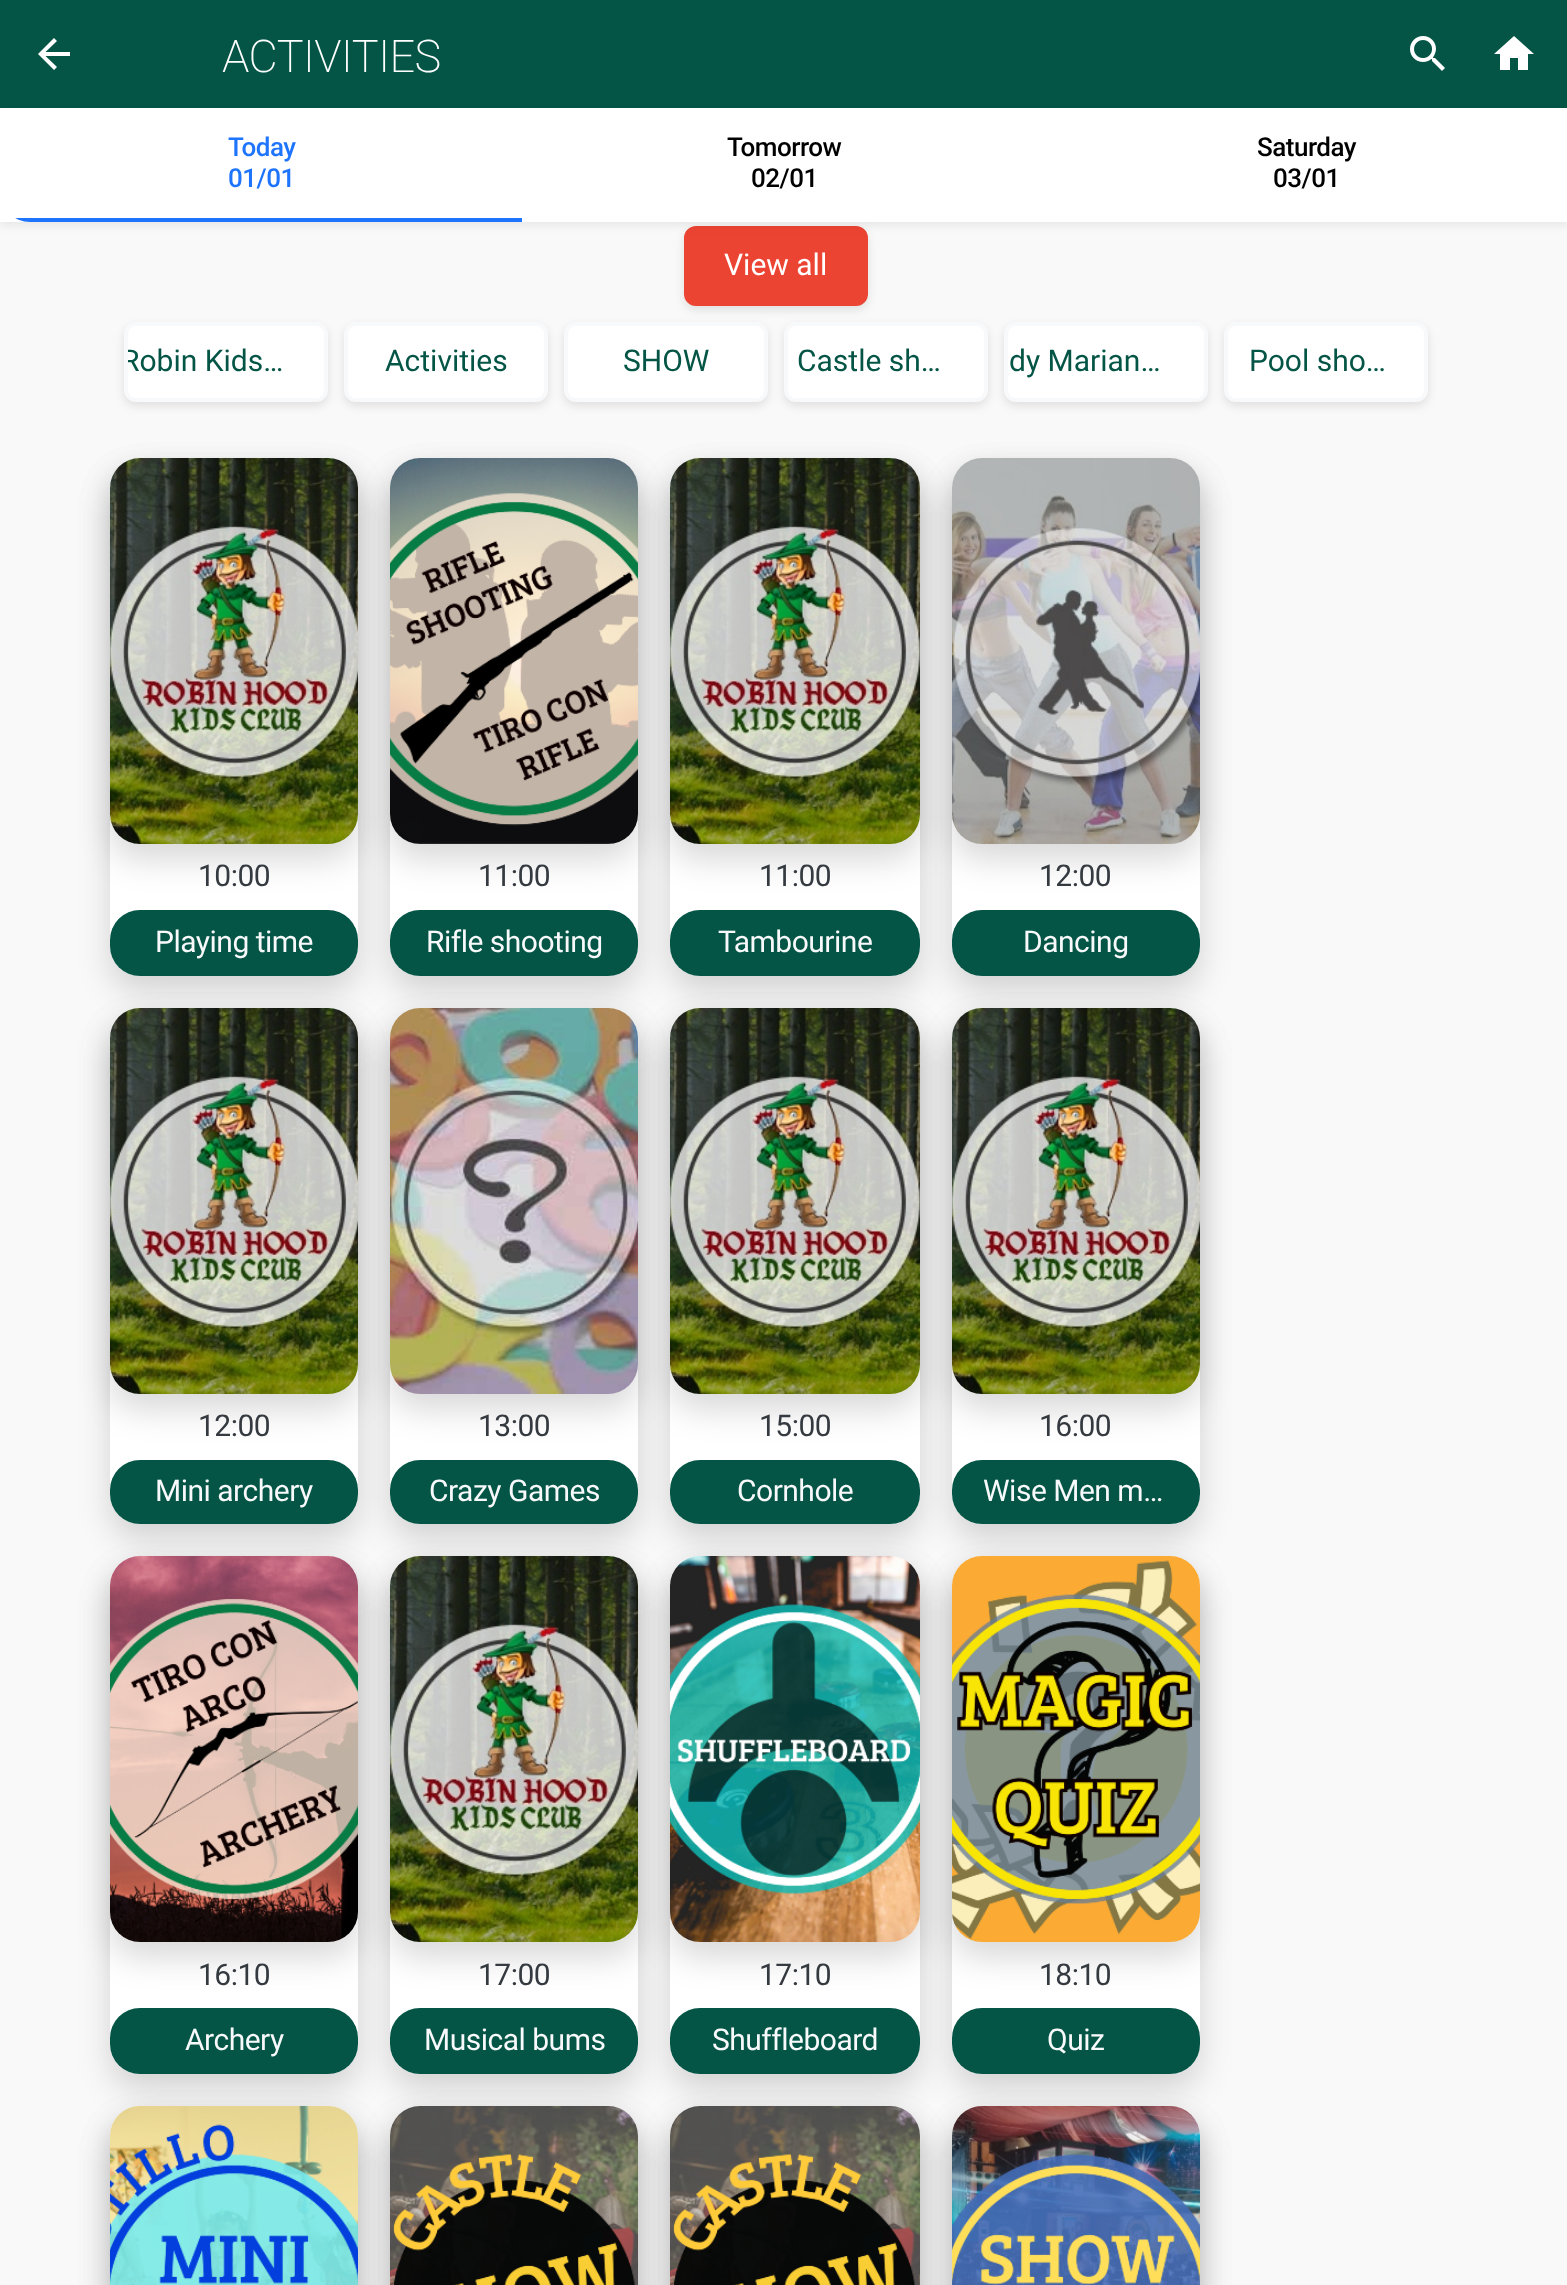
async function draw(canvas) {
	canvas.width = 1567;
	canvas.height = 2285;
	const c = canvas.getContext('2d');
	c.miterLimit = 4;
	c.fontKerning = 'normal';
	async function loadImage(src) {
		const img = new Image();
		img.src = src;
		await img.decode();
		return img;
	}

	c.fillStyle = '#f9f9f9';
	c.fillRect(0, 0, 1567, 2285);
	c.fillStyle = '#045546';
	c.fillRect(0, 0, 1567, 108);
	c.fillStyle = '#fff';
	c.beginPath();
	c.moveTo(70, 52);
	c.lineTo(70, 56);
	c.lineTo(45.5, 56);
	c.lineTo(57, 67);
	c.lineTo(54, 70);
	c.lineTo(38, 54);
	c.lineTo(54, 38);
	c.lineTo(57, 41);
	c.lineTo(45.5, 52);
	c.closePath();
	c.fill();
	c.letterSpacing = '-0.5px';
	c.font = '200 45px Roboto';
	c.fillText('ACTIVITIES', 222, 72);
	c.drawImage(await loadImage('img1.png'), 1410, 36, 35, 35);
	c.beginPath();
	c.moveTo(1510, 70);
	c.lineTo(1500, 70);
	c.lineTo(1500, 54);
	c.lineTo(1494, 54);
	c.lineTo(1514, 36);
	c.lineTo(1534, 54);
	c.lineTo(1528, 54);
	c.lineTo(1528, 70);
	c.lineTo(1518, 70);
	c.lineTo(1518, 58);
	c.lineTo(1510, 58);
	c.closePath();
	c.fill();
	c.fillStyle = '#0000001a';
	c.filter = 'blur(5px)';
	c.beginPath();
	c.roundRect(684, 230, 184, 80, 12);
	c.fill();
	c.filter = 'none';
	c.fillStyle = '#ec4433';
	c.beginPath();
	c.roundRect(686, 228, 180, 76, 10);
	c.fill();
	c.strokeStyle = '#ec4433';
	c.lineWidth = 4;
	c.stroke();
	c.fillStyle = '#00000012';
	c.filter = 'blur(4px)';
	c.beginPath();
	c.rect(0, 112, 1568, 114);
	c.fill();
	c.filter = 'none';
	c.fillStyle = '#fff';
	c.fillRect(0, 108, 1567, 114);
	c.save();
	c.beginPath();
	c.roundRect(0, 110, 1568, 112, 30);
	c.clip();
	c.fillStyle = '#1e74fd';
	c.fillRect(15, 218, 507, 4);
	c.restore();
	c.font = '500 26px Roboto';
	c.fillStyle = '#1e74fd';
	c.fillText('Today', 228, 156);
	c.fillText('01/01', 228, 187);
	c.fillStyle = '#000';
	for (const [text, x, y] of [
		['Tomorrow', 727, 156],
		['02/01', 751, 187],
		['Saturday', 1257, 156],
		['03/01', 1273, 187],
	]) {
		c.fillText(text, x, y);
	}
	c.letterSpacing = '0px';
	c.font = '30px Roboto';
	c.fillStyle = '#fff';
	c.fillText('View all', 724, 275);
	c.fillStyle = '#0000001a';
	c.filter = 'blur(5px)';
	c.beginPath();
	c.roundRect(124, 326, 204, 80, 12);
	c.fill();
	c.filter = 'none';
	c.fillStyle = '#fff';
	c.beginPath();
	c.roundRect(126, 324, 200, 76, 10);
	c.fill();
	c.strokeStyle = '#f8f9fa';
	c.stroke();
	c.save();
	c.beginPath();
	c.roundRect(128, 326, 196, 72, 8);
	c.clip();
	c.fillStyle = '#045546';
	c.fillText('Robin Kids…', 121, 371);
	c.restore();
	c.fillStyle = '#0000001a';
	c.filter = 'blur(5px)';
	c.beginPath();
	c.roundRect(344, 326, 204, 80, 12);
	c.fill();
	c.filter = 'none';
	c.fillStyle = '#fff';
	c.beginPath();
	c.roundRect(346, 324, 200, 76, 10);
	c.fill();
	c.stroke();
	c.fillStyle = '#045546';
	c.fillText('Activities', 385, 371);
	c.fillStyle = '#0000001a';
	c.filter = 'blur(5px)';
	c.beginPath();
	c.roundRect(564, 326, 204, 80, 12);
	c.fill();
	c.filter = 'none';
	c.fillStyle = '#fff';
	c.beginPath();
	c.roundRect(566, 324, 200, 76, 10);
	c.fill();
	c.stroke();
	c.fillStyle = '#045546';
	c.fillText('SHOW', 623, 371);
	c.fillStyle = '#0000001a';
	c.filter = 'blur(5px)';
	c.beginPath();
	c.roundRect(784, 326, 204, 80, 12);
	c.fill();
	c.filter = 'none';
	c.fillStyle = '#fff';
	c.beginPath();
	c.roundRect(786, 324, 200, 76, 10);
	c.fill();
	c.stroke();
	c.fillStyle = '#045546';
	c.fillText('Castle sh…', 797, 371);
	c.fillStyle = '#0000001a';
	c.filter = 'blur(5px)';
	c.beginPath();
	c.roundRect(1004, 326, 204, 80, 12);
	c.fill();
	c.filter = 'none';
	c.fillStyle = '#fff';
	c.beginPath();
	c.roundRect(1006, 324, 200, 76, 10);
	c.fill();
	c.stroke();
	c.fillStyle = '#045546';
	c.fillText('dy Marian…', 1009, 371);
	c.fillStyle = '#0000001a';
	c.filter = 'blur(5px)';
	c.beginPath();
	c.roundRect(1224, 326, 204, 80, 12);
	c.fill();
	c.filter = 'none';
	c.fillStyle = '#fff';
	c.beginPath();
	c.roundRect(1226, 324, 200, 76, 10);
	c.fill();
	c.stroke();
	c.fillStyle = '#045546';
	c.fillText('Pool sho…', 1249, 371);
	c.fillStyle = '#00000026';
	c.filter = 'blur(16px)';
	c.beginPath();
	c.roundRect(110, 474, 248, 518, 30);
	c.fill();
	c.filter = 'none';
	c.fillStyle = '#fff';
	c.beginPath();
	c.roundRect(110, 458, 248, 518, 30);
	c.fill();
	c.fillStyle = '#00000026';
	c.filter = 'blur(16px)';
	c.beginPath();
	c.roundRect(110, 474, 248, 386, 30);
	c.fill();
	c.filter = 'none';
	c.drawImage(await loadImage('img2.png'), 110, 458, 248, 386);
	c.letterSpacing = '-0.5px';
	c.fillStyle = '#343a40';
	c.fillText('10:00', 198, 886);
	c.fillStyle = '#045546';
	c.beginPath();
	c.roundRect(110, 910, 248, 66, 30);
	c.fill();
	c.fillStyle = '#f8f9fa';
	c.fillText('Playing time', 155, 952);
	c.fillStyle = '#00000026';
	c.filter = 'blur(16px)';
	c.beginPath();
	c.roundRect(390, 474, 248, 518, 30);
	c.fill();
	c.filter = 'none';
	c.fillStyle = '#fff';
	c.beginPath();
	c.roundRect(390, 458, 248, 518, 30);
	c.fill();
	c.fillStyle = '#00000026';
	c.filter = 'blur(16px)';
	c.beginPath();
	c.roundRect(390, 474, 248, 386, 30);
	c.fill();
	c.filter = 'none';
	c.drawImage(await loadImage('img3.png'), 390, 458, 248, 386);
	c.fillStyle = '#343a40';
	c.fillText('11:00', 478, 886);
	c.fillStyle = '#045546';
	c.beginPath();
	c.roundRect(390, 910, 248, 66, 30);
	c.fill();
	c.fillStyle = '#f8f9fa';
	c.fillText('Rifle shooting', 426, 952);
	c.fillStyle = '#00000026';
	c.filter = 'blur(16px)';
	c.beginPath();
	c.roundRect(670, 474, 250, 518, 30);
	c.fill();
	c.filter = 'none';
	c.fillStyle = '#fff';
	c.beginPath();
	c.roundRect(670, 458, 250, 518, 30);
	c.fill();
	c.fillStyle = '#00000026';
	c.filter = 'blur(16px)';
	c.beginPath();
	c.roundRect(670, 474, 250, 386, 30);
	c.fill();
	c.filter = 'none';
	c.drawImage(await loadImage('img4.png'), 670, 458, 250, 386);
	c.fillStyle = '#343a40';
	c.fillText('11:00', 759, 886);
	c.fillStyle = '#045546';
	c.beginPath();
	c.roundRect(670, 910, 250, 66, 30);
	c.fill();
	c.fillStyle = '#f8f9fa';
	c.fillText('Tambourine', 718, 952);
	c.fillStyle = '#00000026';
	c.filter = 'blur(16px)';
	c.beginPath();
	c.roundRect(952, 474, 248, 518, 30);
	c.fill();
	c.filter = 'none';
	c.fillStyle = '#fff';
	c.beginPath();
	c.roundRect(952, 458, 248, 518, 30);
	c.fill();
	c.fillStyle = '#00000026';
	c.filter = 'blur(16px)';
	c.beginPath();
	c.roundRect(952, 474, 248, 386, 30);
	c.fill();
	c.filter = 'none';
	c.drawImage(await loadImage('img5.png'), 952, 458, 248, 386);
	c.fillStyle = '#343a40';
	c.fillText('12:00', 1039, 886);
	c.fillStyle = '#045546';
	c.beginPath();
	c.roundRect(952, 910, 248, 66, 30);
	c.fill();
	c.fillStyle = '#f8f9fa';
	c.fillText('Dancing', 1023, 952);
	c.fillStyle = '#00000026';
	c.filter = 'blur(16px)';
	c.beginPath();
	c.roundRect(110, 1024, 248, 516, 30);
	c.fill();
	c.filter = 'none';
	c.fillStyle = '#fff';
	c.beginPath();
	c.roundRect(110, 1008, 248, 516, 30);
	c.fill();
	c.fillStyle = '#00000026';
	c.filter = 'blur(16px)';
	c.beginPath();
	c.roundRect(110, 1024, 248, 386, 30);
	c.fill();
	c.filter = 'none';
	c.drawImage(await loadImage('img6.png'), 110, 1008, 248, 386);
	c.fillStyle = '#343a40';
	c.fillText('12:00', 198, 1436);
	c.fillStyle = '#045546';
	c.beginPath();
	c.roundRect(110, 1460, 248, 64, 30);
	c.fill();
	c.fillStyle = '#f8f9fa';
	c.fillText('Mini archery', 155, 1501);
	c.fillStyle = '#00000026';
	c.filter = 'blur(16px)';
	c.beginPath();
	c.roundRect(390, 1024, 248, 516, 30);
	c.fill();
	c.filter = 'none';
	c.fillStyle = '#fff';
	c.beginPath();
	c.roundRect(390, 1008, 248, 516, 30);
	c.fill();
	c.fillStyle = '#00000026';
	c.filter = 'blur(16px)';
	c.beginPath();
	c.roundRect(390, 1024, 248, 386, 30);
	c.fill();
	c.filter = 'none';
	c.drawImage(await loadImage('img7.png'), 390, 1008, 248, 386);
	c.fillStyle = '#343a40';
	c.fillText('13:00', 478, 1436);
	c.fillStyle = '#045546';
	c.beginPath();
	c.roundRect(390, 1460, 248, 64, 30);
	c.fill();
	c.fillStyle = '#f8f9fa';
	c.fillText('Crazy Games', 429, 1501);
	c.fillStyle = '#00000026';
	c.filter = 'blur(16px)';
	c.beginPath();
	c.roundRect(670, 1024, 250, 516, 30);
	c.fill();
	c.filter = 'none';
	c.fillStyle = '#fff';
	c.beginPath();
	c.roundRect(670, 1008, 250, 516, 30);
	c.fill();
	c.fillStyle = '#00000026';
	c.filter = 'blur(16px)';
	c.beginPath();
	c.roundRect(670, 1024, 250, 386, 30);
	c.fill();
	c.filter = 'none';
	c.drawImage(await loadImage('img8.png'), 670, 1008, 250, 386);
	c.fillStyle = '#343a40';
	c.fillText('15:00', 759, 1436);
	c.fillStyle = '#045546';
	c.beginPath();
	c.roundRect(670, 1460, 250, 64, 30);
	c.fill();
	c.fillStyle = '#f8f9fa';
	c.fillText('Cornhole', 737, 1501);
	c.fillStyle = '#00000026';
	c.filter = 'blur(16px)';
	c.beginPath();
	c.roundRect(952, 1024, 248, 516, 30);
	c.fill();
	c.filter = 'none';
	c.fillStyle = '#fff';
	c.beginPath();
	c.roundRect(952, 1008, 248, 516, 30);
	c.fill();
	c.fillStyle = '#00000026';
	c.filter = 'blur(16px)';
	c.beginPath();
	c.roundRect(952, 1024, 248, 386, 30);
	c.fill();
	c.filter = 'none';
	c.drawImage(await loadImage('img9.png'), 952, 1008, 248, 386);
	c.fillStyle = '#343a40';
	c.fillText('16:00', 1039, 1436);
	c.fillStyle = '#045546';
	c.beginPath();
	c.roundRect(952, 1460, 248, 64, 30);
	c.fill();
	c.fillStyle = '#f8f9fa';
	c.fillText('Wise Men m…', 983, 1501);
	c.fillStyle = '#00000026';
	c.filter = 'blur(16px)';
	c.beginPath();
	c.roundRect(110, 1572, 248, 518, 30);
	c.fill();
	c.filter = 'none';
	c.fillStyle = '#fff';
	c.beginPath();
	c.roundRect(110, 1556, 248, 518, 30);
	c.fill();
	c.fillStyle = '#00000026';
	c.filter = 'blur(16px)';
	c.beginPath();
	c.roundRect(110, 1572, 248, 386, 30);
	c.fill();
	c.filter = 'none';
	c.drawImage(await loadImage('img10.png'), 110, 1556, 248, 386);
	c.fillStyle = '#343a40';
	c.fillText('16:10', 198, 1985);
	c.fillStyle = '#045546';
	c.beginPath();
	c.roundRect(110, 2008, 248, 66, 30);
	c.fill();
	c.fillStyle = '#f8f9fa';
	c.fillText('Archery', 185, 2050);
	c.fillStyle = '#00000026';
	c.filter = 'blur(16px)';
	c.beginPath();
	c.roundRect(390, 1572, 248, 518, 30);
	c.fill();
	c.filter = 'none';
	c.fillStyle = '#fff';
	c.beginPath();
	c.roundRect(390, 1556, 248, 518, 30);
	c.fill();
	c.fillStyle = '#00000026';
	c.filter = 'blur(16px)';
	c.beginPath();
	c.roundRect(390, 1572, 248, 386, 30);
	c.fill();
	c.filter = 'none';
	c.drawImage(await loadImage('img11.png'), 390, 1556, 248, 386);
	c.fillStyle = '#343a40';
	c.fillText('17:00', 478, 1985);
	c.fillStyle = '#045546';
	c.beginPath();
	c.roundRect(390, 2008, 248, 66, 30);
	c.fill();
	c.fillStyle = '#f8f9fa';
	c.fillText('Musical bums', 424, 2050);
	c.fillStyle = '#00000026';
	c.filter = 'blur(16px)';
	c.beginPath();
	c.roundRect(670, 1572, 250, 518, 30);
	c.fill();
	c.filter = 'none';
	c.fillStyle = '#fff';
	c.beginPath();
	c.roundRect(670, 1556, 250, 518, 30);
	c.fill();
	c.fillStyle = '#00000026';
	c.filter = 'blur(16px)';
	c.beginPath();
	c.roundRect(670, 1572, 250, 386, 30);
	c.fill();
	c.filter = 'none';
	c.drawImage(await loadImage('img12.png'), 670, 1556, 250, 386);
	c.fillStyle = '#343a40';
	c.fillText('17:10', 759, 1985);
	c.fillStyle = '#045546';
	c.beginPath();
	c.roundRect(670, 2008, 250, 66, 30);
	c.fill();
	c.fillStyle = '#f8f9fa';
	c.fillText('Shuffleboard', 712, 2050);
	c.fillStyle = '#00000026';
	c.filter = 'blur(16px)';
	c.beginPath();
	c.roundRect(952, 1572, 248, 518, 30);
	c.fill();
	c.filter = 'none';
	c.fillStyle = '#fff';
	c.beginPath();
	c.roundRect(952, 1556, 248, 518, 30);
	c.fill();
	c.fillStyle = '#00000026';
	c.filter = 'blur(16px)';
	c.beginPath();
	c.roundRect(952, 1572, 248, 386, 30);
	c.fill();
	c.filter = 'none';
	c.drawImage(await loadImage('img13.png'), 952, 1556, 248, 386);
	c.fillStyle = '#343a40';
	c.fillText('18:10', 1039, 1985);
	c.fillStyle = '#045546';
	c.beginPath();
	c.roundRect(952, 2008, 248, 66, 30);
	c.fill();
	c.fillStyle = '#f8f9fa';
	c.fillText('Quiz', 1047, 2050);
	c.fillStyle = '#00000026';
	c.filter = 'blur(16px)';
	c.beginPath();
	c.roundRect(110, 2122, 248, 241, 30);
	c.fill();
	c.filter = 'none';
	c.fillStyle = '#fff';
	c.beginPath();
	c.roundRect(110, 2106, 248, 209, 30);
	c.fill();
	c.fillStyle = '#00000026';
	c.filter = 'blur(16px)';
	c.beginPath();
	c.roundRect(110, 2122, 248, 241, 30);
	c.fill();
	c.filter = 'none';
	c.drawImage(await loadImage('img14.png'), 110, 2106, 248, 179);
	c.filter = 'blur(16px)';
	c.beginPath();
	c.roundRect(390, 2122, 248, 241, 30);
	c.fill();
	c.filter = 'none';
	c.fillStyle = '#fff';
	c.beginPath();
	c.roundRect(390, 2106, 248, 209, 30);
	c.fill();
	c.fillStyle = '#00000026';
	c.filter = 'blur(16px)';
	c.beginPath();
	c.roundRect(390, 2122, 248, 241, 30);
	c.fill();
	c.filter = 'none';
	c.drawImage(await loadImage('img15.png'), 390, 2106, 248, 179);
	c.filter = 'blur(16px)';
	c.beginPath();
	c.roundRect(670, 2122, 250, 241, 30);
	c.fill();
	c.filter = 'none';
	c.fillStyle = '#fff';
	c.beginPath();
	c.roundRect(670, 2106, 250, 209, 30);
	c.fill();
	c.fillStyle = '#00000026';
	c.filter = 'blur(16px)';
	c.beginPath();
	c.roundRect(670, 2122, 250, 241, 30);
	c.fill();
	c.filter = 'none';
	c.drawImage(await loadImage('img16.png'), 670, 2106, 250, 179);
	c.filter = 'blur(16px)';
	c.beginPath();
	c.roundRect(952, 2122, 248, 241, 30);
	c.fill();
	c.filter = 'none';
	c.fillStyle = '#fff';
	c.beginPath();
	c.roundRect(952, 2106, 248, 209, 30);
	c.fill();
	c.fillStyle = '#00000026';
	c.filter = 'blur(16px)';
	c.beginPath();
	c.roundRect(952, 2122, 248, 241, 30);
	c.fill();
	c.filter = 'none';
	c.drawImage(await loadImage('img17.png'), 952, 2106, 248, 179);
}

draw(document.querySelector('canvas'));
